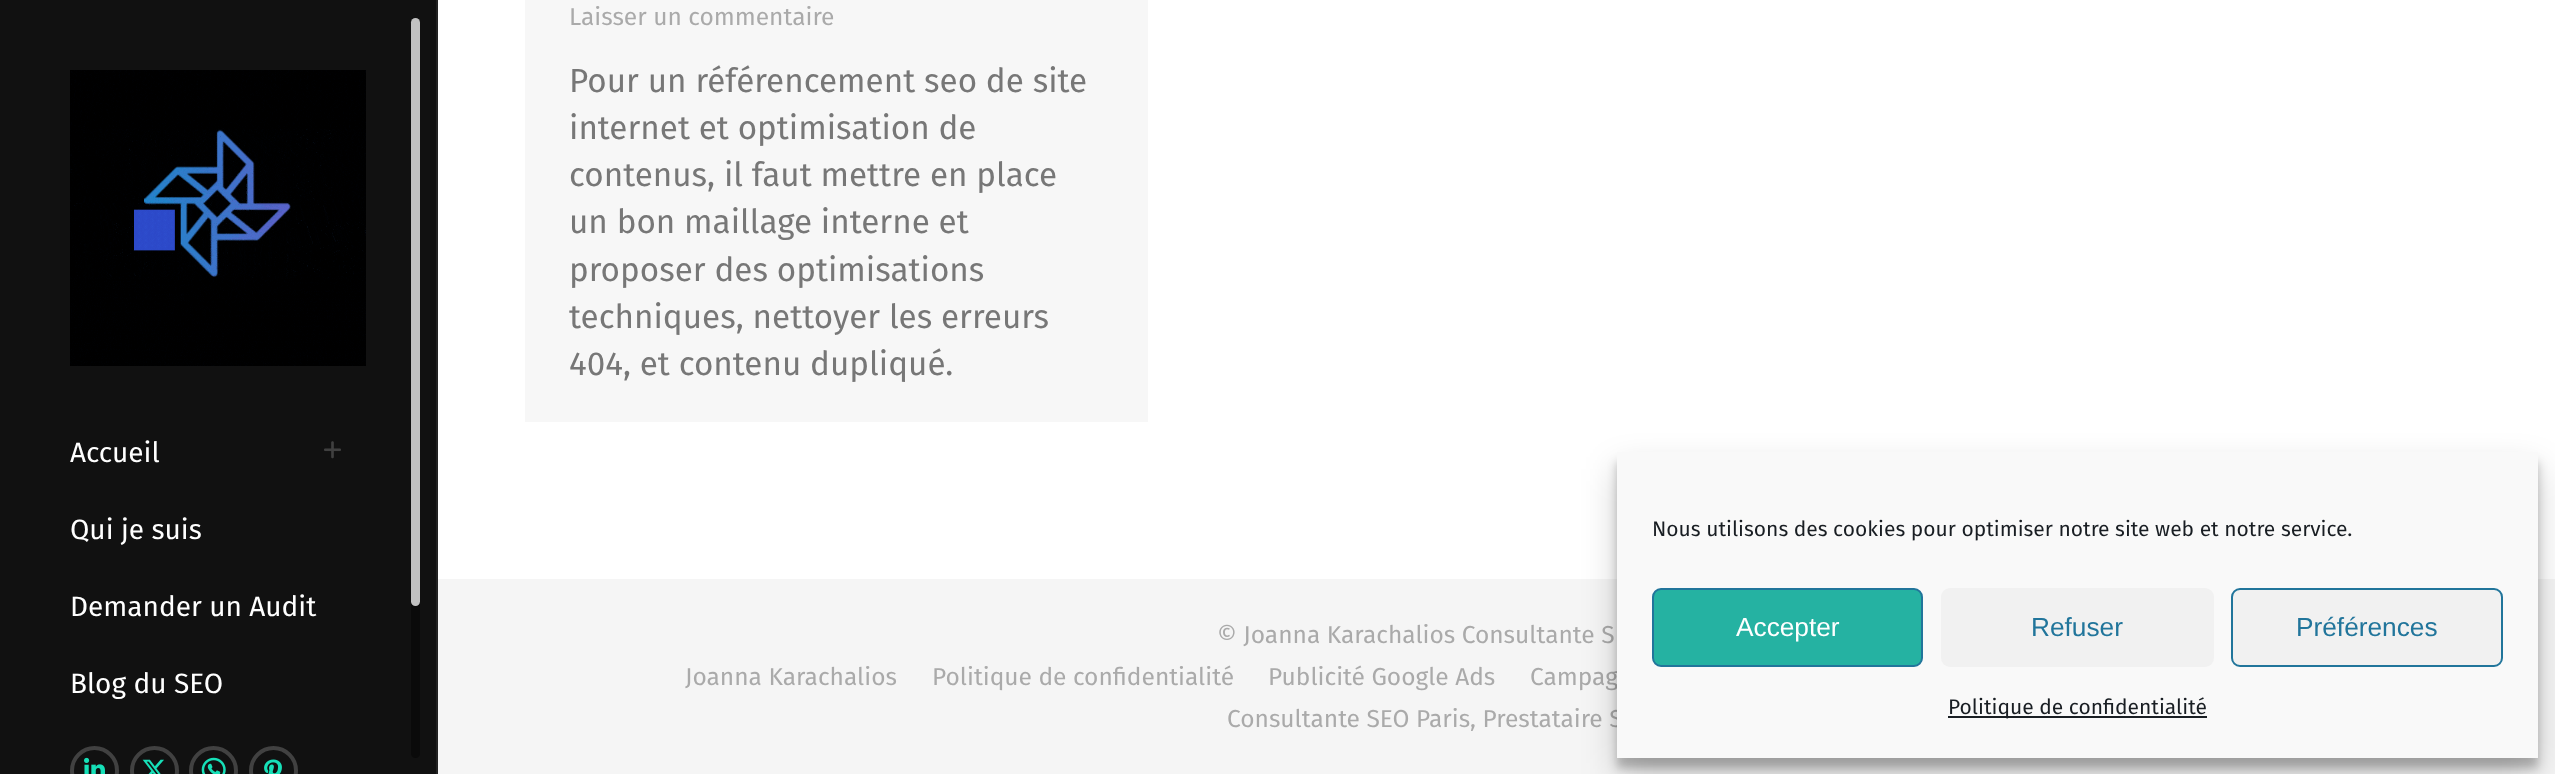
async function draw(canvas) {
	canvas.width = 2555;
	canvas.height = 774;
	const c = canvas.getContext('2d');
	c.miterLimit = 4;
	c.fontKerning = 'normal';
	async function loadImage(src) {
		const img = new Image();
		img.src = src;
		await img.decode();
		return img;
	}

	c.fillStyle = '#fff';
	c.fillRect(0, 0, 2555, 774);
	c.fillStyle = '#f7f7f7';
	c.fillRect(525, 0, 623, 422);
	c.font = '24.5px Fira Sans';
	c.fillStyle = '#aaa';
	c.fillText('Laisser un commentaire', 569, 25);
	c.font = '33.25px Fira Sans';
	c.fillStyle = '#777';
	for (const [text, x, y] of [
		['Pour un référencement seo de site', 569, 92],
		['internet et optimisation de', 569, 139],
		['contenus, il faut mettre en place', 569, 186],
		['un bon maillage interne et', 569, 233],
		['proposer des optimisations', 569, 281],
		['techniques, nettoyer les erreurs', 569, 328],
		['404, et contenu dupliqué.', 569, 375],
	]) {
		c.fillText(text, x, y);
	}
	c.fillStyle = '#111';
	c.fillRect(0, 0, 436, 774);
	c.fillStyle = '#222';
	c.fillRect(436, 0, 2, 774);
	c.drawImage(await loadImage('img1.png'), 70, 70, 296, 296);
	c.font = '28px Fira Sans';
	c.fillStyle = '#fff';
	c.fillText('Accueil', 70, 462);
	c.drawImage(await loadImage('img2.png'), 324, 441, 17, 18);
	for (const [text, x, y] of [
		['Qui je suis', 70, 539],
		['Demander un Audit', 70, 616],
		['Blog du SEO', 70, 693],
	]) {
		c.fillText(text, x, y);
	}
	c.beginPath();
	c.arc(94.5, 770.5, 22.5, 0, 2 * Math.PI);
	c.strokeStyle = '#414141';
	c.lineWidth = 4;
	c.stroke();
	c.drawImage(await loadImage('img3.png'), 84, 757, 21, 17);
	c.beginPath();
	c.arc(154.5, 770.5, 22.5, 0, 2 * Math.PI);
	c.stroke();
	c.drawImage(await loadImage('img4.png'), 142, 759, 22, 15);
	c.beginPath();
	c.arc(213.5, 770.5, 22.5, 0, 2 * Math.PI);
	c.stroke();
	c.drawImage(await loadImage('img5.png'), 201, 757, 25, 17);
	c.beginPath();
	c.arc(273.5, 770.5, 22.5, 0, 2 * Math.PI);
	c.stroke();
	c.drawImage(await loadImage('img6.png'), 264, 759, 18, 15);
	c.fillStyle = '#0a0a0a';
	c.beginPath();
	c.roundRect(411, 18, 9, 740, 4.5);
	c.fill();
	c.fillStyle = '#ffffffbf';
	c.beginPath();
	c.roundRect(411, 18, 9, 588, 4.5);
	c.fill();
	c.fillStyle = '#f5f5f5';
	c.fillRect(438, 579, 2117, 195);
	c.font = '24.5px Fira Sans';
	c.fillStyle = '#aaa';
	for (const [text, x, y] of [
		['© Joanna Karachalios Consultante S', 1217, 643],
		['Joanna Karachalios', 685, 685],
		['Politique de confidentialité', 932, 685],
		['Publicité Google Ads', 1268, 685],
		['Campag', 1530, 685],
		['Consultante SEO Paris, Prestataire S', 1227, 727],
	]) {
		c.fillText(text, x, y);
	}
	c.fillStyle = '#0000003b';
	c.filter = 'blur(5px)';
	c.beginPath();
	c.rect(1617, 462, 921, 306);
	c.fill();
	c.filter = 'none';
	c.fillStyle = '#00000030';
	c.filter = 'blur(17.5px)';
	c.beginPath();
	c.rect(1617, 469, 921, 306);
	c.fill();
	c.filter = 'none';
	c.fillStyle = '#f9f9f9';
	c.fillRect(1617, 452, 921, 306);
	c.font = '21px Fira Sans';
	c.fillStyle = '#191e23';
	c.fillText('Nous utilisons des cookies pour optimiser notre site web et notre service.', 1652, 536);
	c.fillStyle = '#25b2a2';
	c.beginPath();
	c.roundRect(1653, 589, 269, 77, 8);
	c.fill();
	c.strokeStyle = '#21759b';
	c.lineWidth = 2;
	c.stroke();
	c.font = '26.25px Liberation Sans';
	c.fillStyle = '#fff';
	c.fillText('Accepter', 1736, 636);
	c.fillStyle = '#f1f1f1';
	c.beginPath();
	c.roundRect(1941, 588, 273, 79, 9);
	c.fill();
	c.fillStyle = '#21759b';
	c.fillText('Refuser', 2031, 636);
	c.fillStyle = '#f1f1f1';
	c.beginPath();
	c.roundRect(2232, 589, 270, 77, 8);
	c.fill();
	c.stroke();
	c.fillStyle = '#21759b';
	c.fillText('Préférences', 2296, 636);
	c.fillStyle = '#191e23';
	c.fillRect(1948, 716, 259, 2);
	c.font = '21px Fira Sans';
	c.fillText('Politique de confidentialité', 1948, 714);
}

draw(document.querySelector('canvas'));
